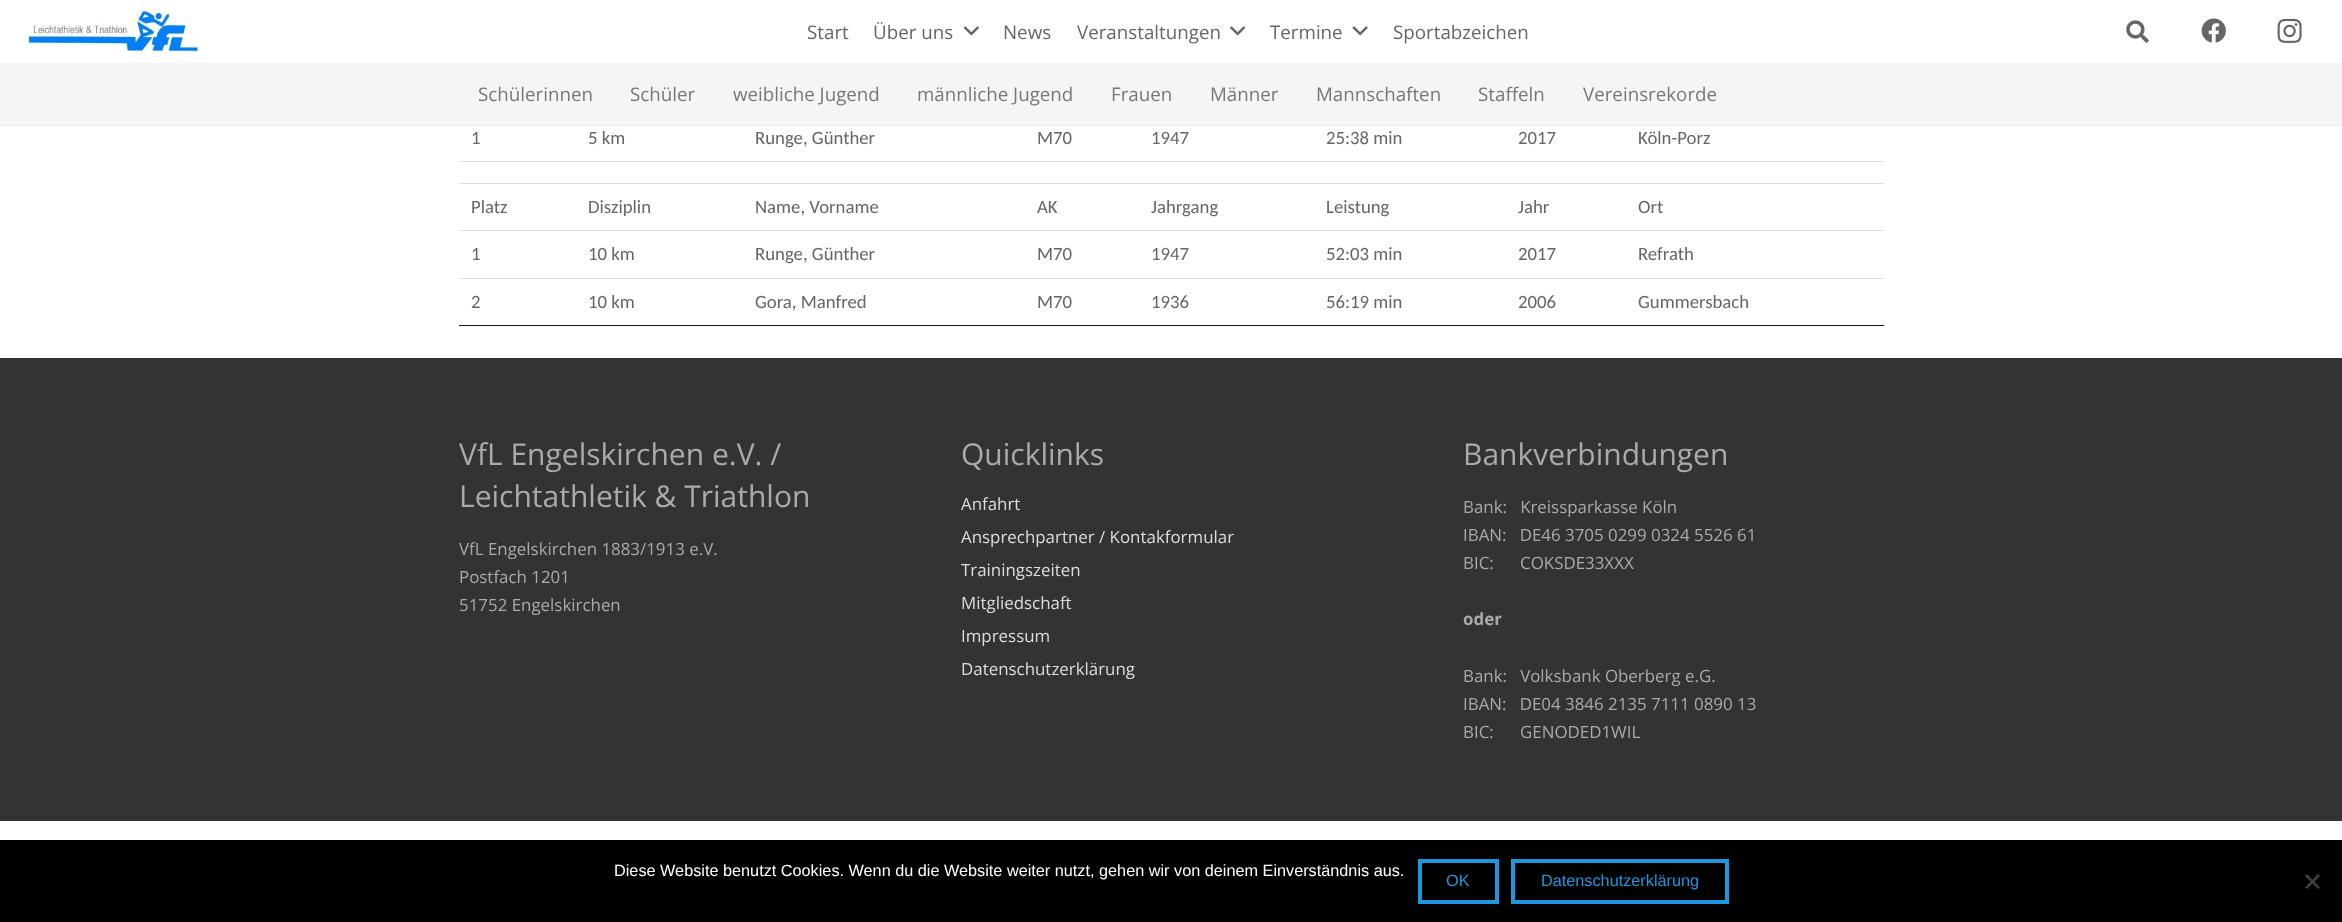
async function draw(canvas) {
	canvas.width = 2342;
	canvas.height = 922;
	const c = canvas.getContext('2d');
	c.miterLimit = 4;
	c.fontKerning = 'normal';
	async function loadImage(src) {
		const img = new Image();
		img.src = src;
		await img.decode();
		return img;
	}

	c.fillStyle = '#fff';
	c.fillRect(0, 0, 2342, 922);
	c.drawImage(await loadImage('img1.png'), 28, 10, 170, 44);
	c.font = '18.75px Open Sans';
	c.fillStyle = '#666';
	c.fillText('Start', 807, 39);
	c.fillText('Über uns', 873, 39);
	c.drawImage(await loadImage('img2.png'), 963, 26, 16, 10);
	c.fillText('News', 1003, 39);
	c.fillText('Veranstaltungen', 1077, 39);
	c.drawImage(await loadImage('img3.png'), 1230, 26, 16, 10);
	c.fillText('Termine', 1270, 39);
	c.drawImage(await loadImage('img4.png'), 1352, 26, 16, 10);
	c.fillText('Sportabzeichen', 1393, 39);
	c.drawImage(await loadImage('img5.png'), 2126, 20, 23, 23);
	c.drawImage(await loadImage('img6.png'), 2201, 18, 25, 25);
	c.drawImage(await loadImage('img7.png'), 2277, 18, 25, 25);
	c.fillStyle = '#ebebeb';
	c.beginPath();
	c.moveTo(0, 125);
	c.lineTo(0, 126);
	c.lineTo(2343, 126);
	c.lineTo(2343, 64);
	c.lineTo(2342, 64);
	c.lineTo(2342, 125);
	c.closePath();
	c.fill();
	c.fillStyle = '#f5f5f5';
	c.fillRect(0, 63, 2342, 62);
	c.fillStyle = '#777';
	for (const [text, x, y] of [
		['Schülerinnen', 478, 101],
		['Schüler', 630, 101],
		['weibliche Jugend', 733, 101],
		['männliche Jugend', 917, 101],
		['Frauen', 1111, 101],
		['Männer', 1210, 101],
		['Mannschaften', 1316, 101],
		['Staffeln', 1478, 101],
		['Vereinsrekorde', 1583, 101],
	]) {
		c.fillText(text, x, y);
	}
	c.fillStyle = '#111';
	c.fillRect(459, 325, 1425, 1);
	c.font = '18.75px Carlito';
	c.fillStyle = '#666';
	for (const [text, x, y] of [
		['1', 471, 144],
		['5 km', 588, 144],
		['Runge, Günther', 755, 144],
		['M70', 1037, 144],
		['1947', 1151, 144],
		['25:38 min', 1326, 144],
		['2017', 1518, 144],
		['Köln-Porz', 1638, 144],
	]) {
		c.fillText(text, x, y);
	}
	c.fillStyle = '#ddd';
	c.fillRect(459, 161, 1425, 1);
	c.fillRect(459, 183, 1425, 1);
	c.fillStyle = '#666';
	for (const [text, x, y] of [
		['Platz', 471, 213],
		['Disziplin', 588, 213],
		['Name, Vorname', 755, 213],
		['AK', 1037, 213],
		['Jahrgang', 1151, 213],
		['Leistung', 1326, 213],
		['Jahr', 1518, 213],
		['Ort', 1638, 213],
	]) {
		c.fillText(text, x, y);
	}
	c.fillStyle = '#ddd';
	c.fillRect(459, 230, 1425, 1);
	c.fillStyle = '#666';
	for (const [text, x, y] of [
		['1', 471, 260],
		['10 km', 588, 260],
		['Runge, Günther', 755, 260],
		['M70', 1037, 260],
		['1947', 1151, 260],
		['52:03 min', 1326, 260],
		['2017', 1518, 260],
		['Refrath', 1638, 260],
	]) {
		c.fillText(text, x, y);
	}
	c.fillStyle = '#ddd';
	c.fillRect(459, 278, 1425, 1);
	c.fillStyle = '#666';
	for (const [text, x, y] of [
		['2', 471, 308],
		['10 km', 588, 308],
		['Gora, Manfred', 755, 308],
		['M70', 1037, 308],
		['1936', 1151, 308],
		['56:19 min', 1326, 308],
		['2006', 1518, 308],
		['Gummersbach', 1638, 308],
	]) {
		c.fillText(text, x, y);
	}
	c.fillStyle = '#333';
	c.fillRect(0, 358, 2342, 463);
	c.font = '30px Open Sans';
	c.fillStyle = '#aaa';
	c.fillText('VfL Engelskirchen e.V. /', 459, 465);
	c.fillText('Leichtathletik & Triathlon', 459, 507);
	c.font = '16.9px Open Sans';
	for (const [text, x, y] of [
		['VfL Engelskirchen 1883/1913 e.V.', 459, 555],
		['Postfach 1201', 459, 583],
		['51752 Engelskirchen', 459, 611],
	]) {
		c.fillText(text, x, y);
	}
	c.font = '30px Open Sans';
	c.fillText('Quicklinks', 961, 465);
	c.font = '16.9px Open Sans';
	c.fillStyle = '#ddd';
	for (const [text, x, y] of [
		['Anfahrt', 961, 510],
		['Ansprechpartner / Kontakformular', 961, 543],
		['Trainingszeiten', 961, 576],
		['Mitgliedschaft', 961, 609],
		['Impressum', 961, 642],
		['Datenschutzerklärung', 961, 675],
	]) {
		c.fillText(text, x, y);
	}
	c.font = '30px Open Sans';
	c.fillStyle = '#aaa';
	c.fillText('Bankverbindungen', 1463, 465);
	c.font = '16.9px Open Sans';
	for (const [text, x, y] of [
		['Bank:   Kreissparkasse Köln', 1463, 513],
		['IBAN:   DE46 3705 0299 0324 5526 61', 1463, 541],
		['BIC:      COKSDE33XXX', 1463, 569],
	]) {
		c.fillText(text, x, y);
	}
	c.font = 'bold 16.9px Open Sans';
	c.fillText('oder', 1463, 625);
	c.font = '16.9px Open Sans';
	for (const [text, x, y] of [
		['Bank:   Volksbank Oberberg e.G.', 1463, 682],
		['IBAN:   DE04 3846 2135 7111 0890 13', 1463, 710],
		['BIC:      GENODED1WIL', 1463, 738],
	]) {
		c.fillText(text, x, y);
	}
	c.fillStyle = '#000';
	c.fillRect(0, 840, 2342, 82);
	c.font = '16.25px Liberation Sans';
	c.fillStyle = '#fff';
	c.fillText('Diese Website benutzt Cookies. Wenn du die Website weiter nutzt, gehen wir von deinem Einverständnis aus.', 614, 876);
	c.strokeStyle = '#1b98e0';
	c.lineWidth = 4;
	c.strokeRect(1420, 861, 77, 41);
	c.fillStyle = '#1b98e0';
	c.fillText('OK', 1446, 886);
	c.strokeRect(1513, 861, 214, 41);
	c.fillText('Datenschutzerklärung', 1541, 886);
	c.fillStyle = '#404040';
	c.beginPath();
	c.moveTo(2318, 874);
	c.lineTo(2320, 876);
	c.lineTo(2307, 889);
	c.lineTo(2305, 887.5);
	c.closePath();
	c.fill();
	c.beginPath();
	c.moveTo(2305, 876);
	c.lineTo(2307, 874);
	c.lineTo(2320, 887.5);
	c.lineTo(2318, 889);
	c.closePath();
	c.fill();
}

draw(document.querySelector('canvas'));
